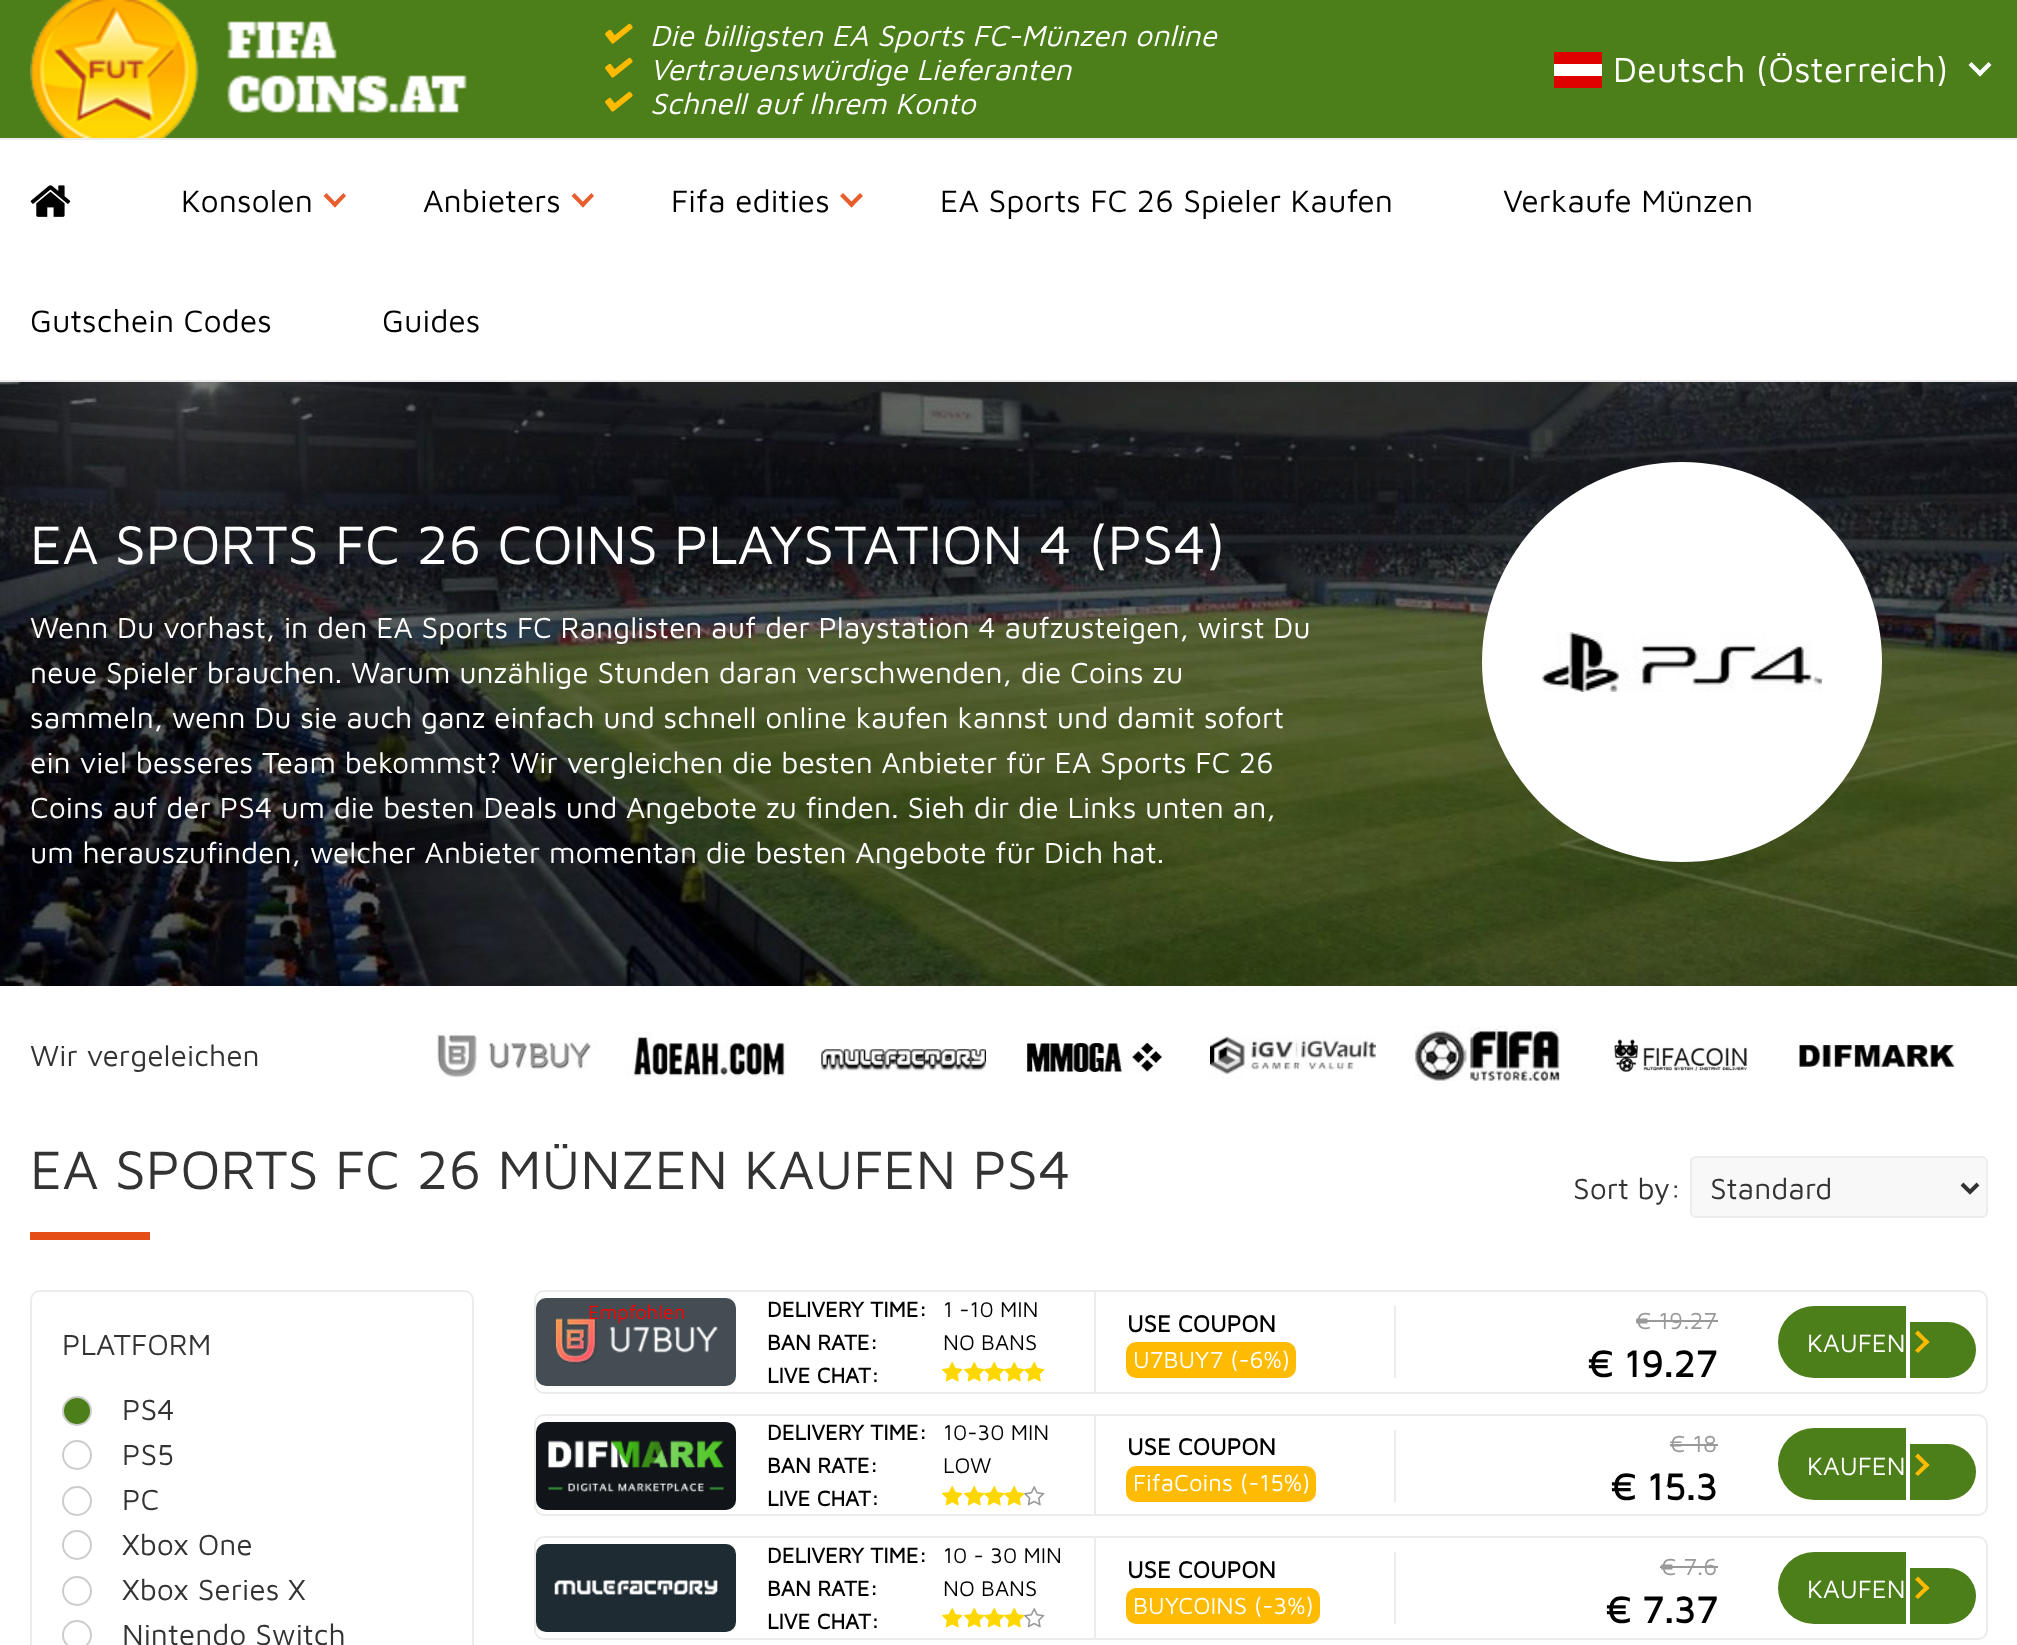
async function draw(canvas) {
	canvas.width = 2017;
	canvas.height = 1645;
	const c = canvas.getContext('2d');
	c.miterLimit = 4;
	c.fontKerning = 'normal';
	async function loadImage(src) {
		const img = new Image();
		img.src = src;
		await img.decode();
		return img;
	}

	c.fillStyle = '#fff';
	c.fillRect(0, 0, 2017, 1645);
	c.fillStyle = '#4c7e1a';
	c.fillRect(0, 0, 2017, 138);
	c.drawImage(await loadImage('img1.png'), 30, 0, 437, 138);
	c.drawImage(await loadImage('img2.png'), 605, 23, 28, 21);
	c.font = 'italic 30px Maven Pro';
	c.fillStyle = '#fff';
	c.fillText('Die billigsten EA Sports FC-Münzen online', 650, 46);
	c.drawImage(await loadImage('img2.png'), 605, 57, 28, 21);
	c.fillText('Vertrauenswürdige Lieferanten', 650, 80);
	c.drawImage(await loadImage('img2.png'), 605, 91, 28, 21);
	c.fillText('Schnell auf Ihrem Konto', 650, 114);
	c.fillRect(1554, 64, 48, 12);
	c.fillStyle = '#df0000';
	c.beginPath();
	c.moveTo(1602, 88);
	c.lineTo(1554, 88);
	c.lineTo(1554, 76);
	c.lineTo(1602, 76);
	c.closePath();
	c.moveTo(1602, 64);
	c.lineTo(1554, 64);
	c.lineTo(1554, 52);
	c.lineTo(1602, 52);
	c.closePath();
	c.fill('evenodd');
	c.font = '36px Maven Pro';
	c.fillStyle = '#fff';
	c.fillText('Deutsch (Österreich)', 1613, 82);
	c.beginPath();
	c.moveTo(1988.5, 62);
	c.lineTo(1991.5, 65);
	c.lineTo(1980, 76.5);
	c.lineTo(1977, 73.5);
	c.closePath();
	c.fill();
	c.beginPath();
	c.moveTo(1971.5, 62);
	c.lineTo(1983, 73.5);
	c.lineTo(1980, 76.5);
	c.lineTo(1968.5, 65);
	c.closePath();
	c.fill();
	c.fillStyle = '#edebeb';
	c.fillRect(0, 138, 2017, 2);
	c.fillRect(0, 380, 2017, 2);
	c.drawImage(await loadImage('img3.png'), 30, 185, 41, 32);
	c.font = '32px Maven Pro';
	c.fillStyle = '#000';
	c.fillText('Konsolen', 181, 212);
	c.fillStyle = '#e85d2c';
	c.beginPath();
	c.moveTo(343.5, 193);
	c.lineTo(346, 196);
	c.lineTo(335, 207.5);
	c.lineTo(332, 204.5);
	c.closePath();
	c.fill();
	c.beginPath();
	c.moveTo(326.5, 193);
	c.lineTo(337.5, 204.5);
	c.lineTo(335, 207.5);
	c.lineTo(323.5, 196);
	c.closePath();
	c.fill();
	c.fillStyle = '#000';
	c.fillText('Anbieters', 423, 212);
	c.fillStyle = '#e85d2c';
	c.beginPath();
	c.moveTo(591.5, 193);
	c.lineTo(594, 196);
	c.lineTo(583, 207.5);
	c.lineTo(580, 204.5);
	c.closePath();
	c.fill();
	c.beginPath();
	c.moveTo(574.5, 193);
	c.lineTo(585.5, 204.5);
	c.lineTo(583, 207.5);
	c.lineTo(571.5, 196);
	c.closePath();
	c.fill();
	c.fillStyle = '#000';
	c.fillText('Fifa edities', 671, 212);
	c.fillStyle = '#e85d2c';
	c.beginPath();
	c.moveTo(860, 193);
	c.lineTo(863, 196);
	c.lineTo(851.5, 207.5);
	c.lineTo(848.5, 204.5);
	c.closePath();
	c.fill();
	c.beginPath();
	c.moveTo(843, 193);
	c.lineTo(854.5, 204.5);
	c.lineTo(851.5, 207.5);
	c.lineTo(840, 196);
	c.closePath();
	c.fill();
	c.fillStyle = '#000';
	for (const [text, x, y] of [
		['EA Sports FC 26 Spieler Kaufen', 940, 212],
		['Verkaufe Münzen', 1503, 212],
		['Gutschein Codes', 30, 332],
		['Guides', 382, 332],
	]) {
		c.fillText(text, x, y);
	}
	c.drawImage(await loadImage('img4.png'), 0, 382, 2017, 604);
	c.font = '56px Maven Pro';
	c.fillStyle = '#fff';
	c.fillText('EA SPORTS FC 26 COINS PLAYSTATION 4 (PS4)', 30, 564);
	c.font = '30px Maven Pro';
	for (const [text, x, y] of [
		['Wenn Du vorhast, in den EA Sports FC Ranglisten auf der Playstation 4 aufzusteigen, wirst Du', 30, 638],
		['neue Spieler brauchen. Warum unzählige Stunden daran verschwenden, die Coins zu', 30, 683],
		['sammeln, wenn Du sie auch ganz einfach und schnell online kaufen kannst und damit sofort', 30, 728],
		['ein viel besseres Team bekommst? Wir vergleichen die besten Anbieter für EA Sports FC 26', 30, 773],
		['Coins auf der PS4 um die besten Deals und Angebote zu finden. Sieh dir die Links unten an,', 30, 818],
		['um herauszufinden, welcher Anbieter momentan die besten Angebote für Dich hat.', 30, 863],
	]) {
		c.fillText(text, x, y);
	}
	c.beginPath();
	c.arc(1682, 662, 200, 0, 2 * Math.PI);
	c.fill();
	c.drawImage(await loadImage('img5.png'), 1542, 632, 280, 60);
	c.fillStyle = '#333';
	c.fillText('Wir vergeleichen', 30, 1066);
	c.drawImage(await loadImage('img6.png'), 437, 1032, 160, 46);
	c.drawImage(await loadImage('img7.png'), 626, 1032, 164, 46);
	c.drawImage(await loadImage('img8.png'), 821, 1049, 165, 22);
	c.drawImage(await loadImage('img9.png'), 1024, 1042, 145, 32);
	c.drawImage(await loadImage('img10.png'), 1210, 1036, 166, 43);
	c.drawImage(await loadImage('img11.png'), 1414, 1026, 146, 55);
	c.drawImage(await loadImage('img12.png'), 1613, 1038, 136, 34);
	c.drawImage(await loadImage('img13.png'), 1794, 1041, 161, 26);
	c.font = '56px Maven Pro';
	c.fillText('EA SPORTS FC 26 MÜNZEN KAUFEN PS4', 30, 1189);
	c.fillStyle = '#e64e18';
	c.fillRect(30, 1232, 120, 8);
	c.font = '30px Maven Pro';
	c.fillStyle = '#333';
	c.fillText('Sort by:', 1573, 1199);
	c.fillStyle = '#f9f8f8';
	c.beginPath();
	c.roundRect(1691, 1157, 296, 60, 5);
	c.fill();
	c.strokeStyle = '#edebeb';
	c.lineWidth = 2;
	c.stroke();
	c.beginPath();
	c.moveTo(1962, 1184);
	c.lineTo(1970, 1192);
	c.lineTo(1978, 1184);
	c.strokeStyle = '#333';
	c.lineWidth = 4;
	c.stroke();
	c.fillStyle = '#333';
	c.fillText('Standard', 1710, 1199);
	c.beginPath();
	c.roundRect(31, 1291, 442, 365, 9);
	c.strokeStyle = '#edebeb';
	c.lineWidth = 2;
	c.stroke();
	c.fillText('PLATFORM', 62, 1355);
	c.fillStyle = '#4c7e1a';
	c.beginPath();
	c.arc(77, 1411, 14, 0, 2 * Math.PI);
	c.fill();
	c.strokeStyle = '#ccc';
	c.stroke();
	c.fillStyle = '#333';
	c.fillText('PS4', 122, 1420);
	c.beginPath();
	c.arc(77, 1455, 14, 0, 2 * Math.PI);
	c.stroke();
	c.fillText('PS5', 122, 1465);
	c.beginPath();
	c.arc(77, 1501, 14, 0, 2 * Math.PI);
	c.stroke();
	c.fillText('PC', 122, 1510);
	c.beginPath();
	c.arc(77, 1545, 14, 0, 2 * Math.PI);
	c.stroke();
	c.fillText('Xbox One', 122, 1555);
	c.beginPath();
	c.arc(77, 1591, 14, 0, 2 * Math.PI);
	c.stroke();
	c.fillText('Xbox Series X', 122, 1600);
	c.beginPath();
	c.arc(77, 1635, 14, 0, 2 * Math.PI);
	c.stroke();
	c.fillText('Nintendo Switch', 122, 1645);
	c.beginPath();
	c.roundRect(535, 1291, 1452, 102, 9);
	c.strokeStyle = '#edebeb';
	c.stroke();
	c.fillStyle = '#434d53';
	c.beginPath();
	c.roundRect(536, 1298, 200, 88, 10);
	c.fill();
	c.drawImage(await loadImage('img14.png'), 555, 1318, 163, 46);
	c.font = '20px Maven Pro';
	c.fillStyle = '#f00';
	c.fillText('Empfohlen', 588, 1319);
	c.fillStyle = '#edebeb';
	c.fillRect(1094, 1292, 2, 100);
	c.font = 'bold 22px Maven Pro';
	c.fillStyle = '#000';
	c.fillText('DELIVERY TIME:', 767, 1317);
	c.font = '22px Maven Pro';
	c.fillText('1 -10 MIN', 943, 1317);
	c.font = 'bold 22px Maven Pro';
	c.fillText('BAN RATE:', 767, 1350);
	c.font = '22px Maven Pro';
	c.fillText('NO BANS', 943, 1350);
	c.font = 'bold 22px Maven Pro';
	c.fillText('LIVE CHAT:', 767, 1383);
	c.drawImage(await loadImage('img15.png'), 942, 1362, 21, 20);
	c.drawImage(await loadImage('img15.png'), 964, 1362, 21, 20);
	c.drawImage(await loadImage('img16.png'), 984, 1362, 21, 20);
	c.drawImage(await loadImage('img16.png'), 1004, 1362, 21, 20);
	c.drawImage(await loadImage('img16.png'), 1024, 1362, 21, 20);
	c.fillStyle = '#edebeb';
	c.fillRect(1394, 1306, 2, 72);
	c.font = 'bold 24px Maven Pro';
	c.fillStyle = '#000';
	c.fillText('USE COUPON', 1127, 1332);
	c.fillStyle = '#ffba02';
	c.beginPath();
	c.roundRect(1126, 1342, 170, 36, 10);
	c.fill();
	c.font = '24px Maven Pro';
	c.fillStyle = '#fff';
	c.fillText('U7BUY7 (-6%)', 1133, 1368);
	c.fillStyle = '#999';
	c.fillText('€ 19.27', 1635, 1329);
	c.fillRect(1636, 1320, 82, 2);
	c.font = 'bold 38px Maven Pro';
	c.fillStyle = '#000';
	c.fillText('€ 19.27', 1587, 1377);
	c.fillStyle = '#4c7e1a';
	c.beginPath();
	c.roundRect(1778, 1306, 128, 72, [36, 0, 0, 36]);
	c.fill();
	c.beginPath();
	c.roundRect(1910, 1322, 66, 56, [0, 28, 28, 0]);
	c.fill();
	c.font = '26px Maven Pro';
	c.fillStyle = '#fff';
	c.fillText('KAUFEN', 1807, 1352);
	c.fillStyle = '#ffba02';
	c.beginPath();
	c.moveTo(1915, 1333.5);
	c.lineTo(1918, 1330.5);
	c.lineTo(1929.5, 1342);
	c.lineTo(1926.5, 1344.5);
	c.closePath();
	c.fill();
	c.beginPath();
	c.moveTo(1915, 1350.5);
	c.lineTo(1926.5, 1339);
	c.lineTo(1929.5, 1342);
	c.lineTo(1918, 1353);
	c.closePath();
	c.fill();
	c.beginPath();
	c.roundRect(535, 1415, 1452, 100, 9);
	c.stroke();
	c.fillStyle = '#11151a';
	c.beginPath();
	c.roundRect(536, 1422, 200, 88, 10);
	c.fill();
	c.drawImage(await loadImage('img17.png'), 548, 1440, 176, 52);
	c.fillStyle = '#edebeb';
	c.fillRect(1094, 1416, 2, 98);
	c.font = 'bold 22px Maven Pro';
	c.fillStyle = '#000';
	c.fillText('DELIVERY TIME:', 767, 1440);
	c.font = '22px Maven Pro';
	c.fillText('10-30 MIN', 943, 1440);
	c.font = 'bold 22px Maven Pro';
	c.fillText('BAN RATE:', 767, 1473);
	c.font = '22px Maven Pro';
	c.fillText('LOW', 943, 1473);
	c.font = 'bold 22px Maven Pro';
	c.fillText('LIVE CHAT:', 767, 1506);
	c.drawImage(await loadImage('img15.png'), 942, 1486, 21, 20);
	c.drawImage(await loadImage('img15.png'), 964, 1486, 21, 20);
	c.drawImage(await loadImage('img16.png'), 984, 1486, 21, 20);
	c.drawImage(await loadImage('img16.png'), 1004, 1486, 21, 20);
	c.drawImage(await loadImage('img18.png'), 1024, 1486, 21, 20);
	c.fillStyle = '#edebeb';
	c.fillRect(1394, 1430, 2, 72);
	c.font = 'bold 24px Maven Pro';
	c.fillStyle = '#000';
	c.fillText('USE COUPON', 1127, 1455);
	c.fillStyle = '#ffba02';
	c.beginPath();
	c.roundRect(1126, 1466, 190, 36, 10);
	c.fill();
	c.font = '24px Maven Pro';
	c.fillStyle = '#fff';
	c.fillText('FifaCoins (-15%)', 1133, 1491);
	c.fillStyle = '#999';
	c.fillText('€ 18', 1669, 1452);
	c.fillRect(1670, 1444, 48, 2);
	c.font = 'bold 38px Maven Pro';
	c.fillStyle = '#000';
	c.fillText('€ 15.3', 1610, 1500);
	c.fillStyle = '#4c7e1a';
	c.beginPath();
	c.roundRect(1778, 1428, 128, 72, [36, 0, 0, 36]);
	c.fill();
	c.beginPath();
	c.roundRect(1910, 1444, 66, 56, [0, 28, 28, 0]);
	c.fill();
	c.font = '26px Maven Pro';
	c.fillStyle = '#fff';
	c.fillText('KAUFEN', 1807, 1475);
	c.fillStyle = '#ffba02';
	c.beginPath();
	c.moveTo(1915, 1456.5);
	c.lineTo(1918, 1453.5);
	c.lineTo(1929.5, 1465);
	c.lineTo(1926.5, 1467.5);
	c.closePath();
	c.fill();
	c.beginPath();
	c.moveTo(1915, 1473.5);
	c.lineTo(1926.5, 1462);
	c.lineTo(1929.5, 1465);
	c.lineTo(1918, 1476);
	c.closePath();
	c.fill();
	c.beginPath();
	c.roundRect(535, 1537, 1452, 102, 9);
	c.stroke();
	c.fillStyle = '#1f2b33';
	c.beginPath();
	c.roundRect(536, 1544, 200, 88, 10);
	c.fill();
	c.drawImage(await loadImage('img19.png'), 554, 1580, 164, 15);
	c.fillStyle = '#edebeb';
	c.fillRect(1094, 1538, 2, 100);
	c.font = 'bold 22px Maven Pro';
	c.fillStyle = '#000';
	c.fillText('DELIVERY TIME:', 767, 1563);
	c.font = '22px Maven Pro';
	c.fillText('10 - 30 MIN', 943, 1563);
	c.font = 'bold 22px Maven Pro';
	c.fillText('BAN RATE:', 767, 1596);
	c.font = '22px Maven Pro';
	c.fillText('NO BANS', 943, 1596);
	c.font = 'bold 22px Maven Pro';
	c.fillText('LIVE CHAT:', 767, 1629);
	c.drawImage(await loadImage('img15.png'), 942, 1608, 21, 20);
	c.drawImage(await loadImage('img15.png'), 964, 1608, 21, 20);
	c.drawImage(await loadImage('img16.png'), 984, 1608, 21, 20);
	c.drawImage(await loadImage('img16.png'), 1004, 1608, 21, 20);
	c.drawImage(await loadImage('img18.png'), 1024, 1608, 21, 20);
	c.fillStyle = '#edebeb';
	c.fillRect(1394, 1552, 2, 72);
	c.font = 'bold 24px Maven Pro';
	c.fillStyle = '#000';
	c.fillText('USE COUPON', 1127, 1578);
	c.fillStyle = '#ffba02';
	c.beginPath();
	c.roundRect(1126, 1588, 194, 36, 10);
	c.fill();
	c.font = '24px Maven Pro';
	c.fillStyle = '#fff';
	c.fillText('BUYCOINS (-3%)', 1133, 1614);
	c.fillStyle = '#999';
	c.fillText('€ 7.6', 1660, 1575);
	c.fillRect(1660, 1566, 58, 2);
	c.font = 'bold 38px Maven Pro';
	c.fillStyle = '#000';
	c.fillText('€ 7.37', 1605, 1623);
	c.fillStyle = '#4c7e1a';
	c.beginPath();
	c.roundRect(1778, 1552, 128, 72, [36, 0, 0, 36]);
	c.fill();
	c.beginPath();
	c.roundRect(1910, 1568, 66, 56, [0, 28, 28, 0]);
	c.fill();
	c.font = '26px Maven Pro';
	c.fillStyle = '#fff';
	c.fillText('KAUFEN', 1807, 1598);
	c.fillStyle = '#ffba02';
	c.beginPath();
	c.moveTo(1915, 1579.5);
	c.lineTo(1918, 1576.5);
	c.lineTo(1929.5, 1588);
	c.lineTo(1926.5, 1590.5);
	c.closePath();
	c.fill();
	c.beginPath();
	c.moveTo(1915, 1596.5);
	c.lineTo(1926.5, 1585);
	c.lineTo(1929.5, 1588);
	c.lineTo(1918, 1599);
	c.closePath();
	c.fill();
}

draw(document.querySelector('canvas'));
